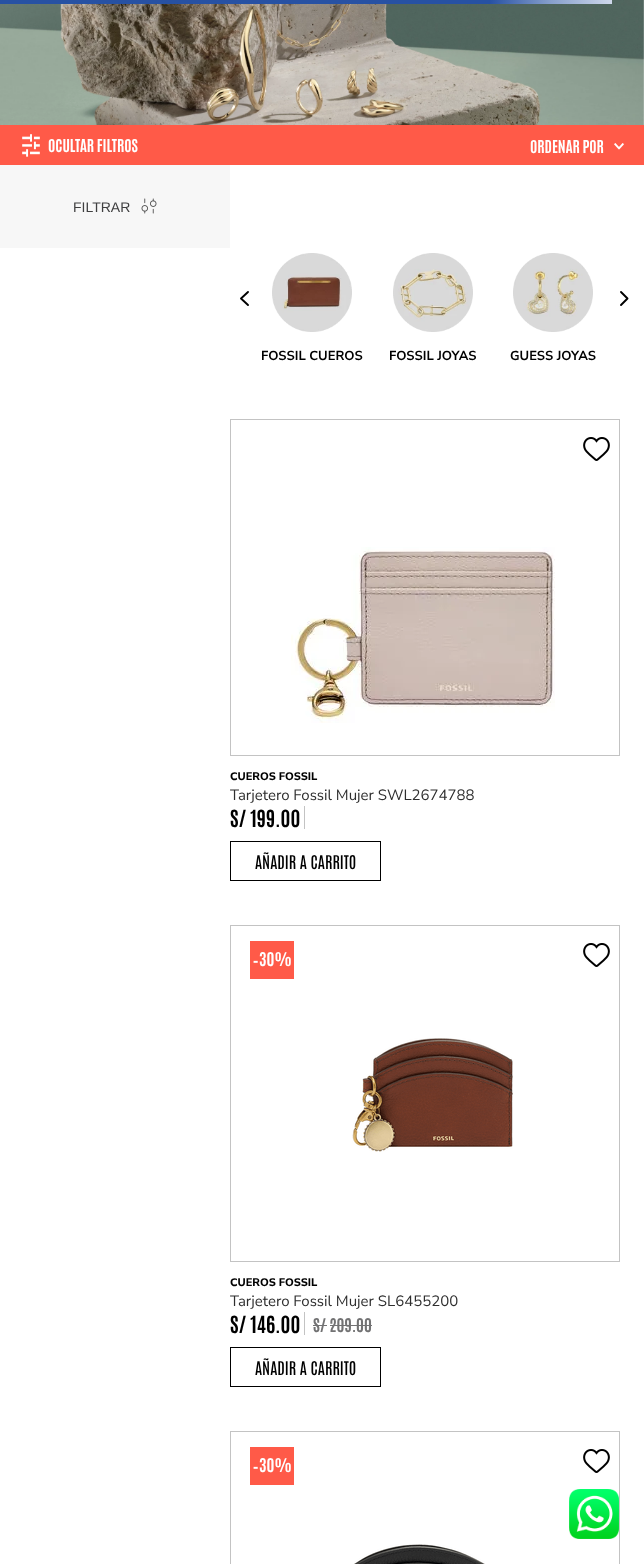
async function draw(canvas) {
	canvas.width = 644;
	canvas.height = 1564;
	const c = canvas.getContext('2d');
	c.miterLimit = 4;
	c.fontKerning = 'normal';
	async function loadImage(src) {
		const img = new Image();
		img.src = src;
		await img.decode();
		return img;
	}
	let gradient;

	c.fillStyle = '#fff';
	c.fillRect(0, 0, 644, 1564);
	c.drawImage(await loadImage('img1.png'), 0, 0, 644, 125);
	gradient = c.createLinearGradient(0, 2, 612, 2);
	gradient.addColorStop(0.8, '#2751a3');
	gradient.addColorStop(0.9, '#879fcc');
	gradient.addColorStop(1, '#cfd8eb');
	c.fillStyle = gradient;
	c.fillRect(0, 0, 612, 4);
	c.fillStyle = '#ff5a48';
	c.fillRect(0, 125, 644, 40);
	c.drawImage(await loadImage('img2.png'), 22, 134, 18, 23);
	c.font = 'bold 15px Antonio';
	c.fillStyle = '#fff';
	c.fillText('OCULTAR FILTROS', 48, 152);
	c.fillStyle = '#f7f7f7';
	c.fillRect(0, 165, 230, 83);
	c.font = '14px Liberation Sans';
	c.fillStyle = '#3f3f40';
	c.fillText('FILTRAR', 73, 212);
	c.drawImage(await loadImage('img3.png'), 141, 198, 16, 16);
	c.font = 'bold 15px Antonio';
	c.fillStyle = '#fff';
	c.fillText('ORDENAR POR', 530, 153);
	c.drawImage(await loadImage('img4.png'), 614, 143, 10, 7);
	c.beginPath();
	c.moveTo(248, 292);
	c.lineTo(241, 298.5);
	c.lineTo(248, 305);
	c.strokeStyle = '#000';
	c.lineWidth = 1.9;
	c.lineCap = 'round';
	c.lineJoin = 'round';
	c.stroke();
	c.beginPath();
	c.moveTo(621, 305);
	c.lineTo(627.5, 298.5);
	c.lineTo(621, 292);
	c.stroke();
	c.drawImage(await loadImage('img5.png'), 272, 253, 80, 79);
	c.font = 'bold 13px Nunito Sans';
	c.fillStyle = '#000';
	c.fillText('FOSSIL CUEROS', 261, 360);
	c.drawImage(await loadImage('img6.png'), 393, 253, 80, 79);
	c.fillText('FOSSIL JOYAS', 389, 360);
	c.drawImage(await loadImage('img7.png'), 513, 253, 80, 79);
	c.fillText('GUESS JOYAS', 510, 360);
	c.strokeStyle = '#c3c3c3';
	c.lineWidth = 1;
	c.lineJoin = 'miter';
	c.strokeRect(230.5, 419.5, 389, 336);
	c.drawImage(await loadImage('img8.png'), 291, 547, 264, 176);
	c.drawImage(await loadImage('img9.png'), 583, 437, 27, 24);
	c.font = '800 11px Nunito Sans';
	c.fillText('CUEROS FOSSIL', 230, 780);
	c.font = '15px Nunito Sans';
	c.fillStyle = '#2e2e2e';
	c.fillText('Tarjetero Fossil Mujer SWL2674788', 230, 800);
	c.fillStyle = '#c3c3c3';
	c.fillRect(304, 806, 1, 23);
	c.font = 'bold 20px Antonio';
	c.fillStyle = '#000';
	c.fillText('S/ 199.00', 230, 827);
	c.strokeStyle = '#000';
	c.strokeRect(230.5, 841.5, 150, 39);
	c.font = '500 16px Antonio';
	c.fillText('AÑADIR A CARRITO', 255, 869);
	c.strokeStyle = '#c3c3c3';
	c.strokeRect(230.5, 925.5, 389, 336);
	c.fillStyle = '#ff5a48';
	c.fillRect(250, 941, 44, 38);
	c.font = 'bold 16px Liberation Sans';
	c.fillStyle = '#fff';
	c.fillText('-', 253, 966);
	c.font = 'bold 16px Antonio';
	c.fillText('30%', 259, 966);
	c.drawImage(await loadImage('img10.png'), 352, 1038, 161, 114);
	c.drawImage(await loadImage('img9.png'), 583, 943, 27, 24);
	c.font = '800 11px Nunito Sans';
	c.fillStyle = '#000';
	c.fillText('CUEROS FOSSIL', 230, 1286);
	c.font = '15px Nunito Sans';
	c.fillStyle = '#2e2e2e';
	c.fillText('Tarjetero Fossil Mujer SL6455200', 230, 1306);
	c.fillStyle = '#c3c3c3';
	c.fillRect(304, 1312, 1, 23);
	c.font = 'bold 20px Antonio';
	c.fillStyle = '#000';
	c.fillText('S/ 146.00', 230, 1333);
	c.font = 'bold 16px Antonio';
	c.fillStyle = '#727273';
	c.fillText('S/ 209.00', 313, 1332);
	c.fillRect(313, 1325, 14, 1);
	c.fillRect(330, 1325, 42, 1);
	c.strokeStyle = '#000';
	c.strokeRect(230.5, 1347.5, 150, 39);
	c.font = '500 16px Antonio';
	c.fillStyle = '#000';
	c.fillText('AÑADIR A CARRITO', 255, 1375);
	c.strokeStyle = '#c3c3c3';
	c.strokeRect(230.5, 1431.5, 389, 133);
	c.fillStyle = '#ff5a48';
	c.fillRect(250, 1447, 44, 38);
	c.font = 'bold 16px Liberation Sans';
	c.fillStyle = '#fff';
	c.fillText('-', 253, 1472);
	c.font = 'bold 16px Antonio';
	c.fillText('30%', 259, 1472);
	c.drawImage(await loadImage('img11.png'), 354, 1544, 131, 20);
	c.drawImage(await loadImage('img9.png'), 583, 1449, 27, 24);
	c.drawImage(await loadImage('img12.png'), 569, 1489, 50, 50);
}

draw(document.querySelector('canvas'));
